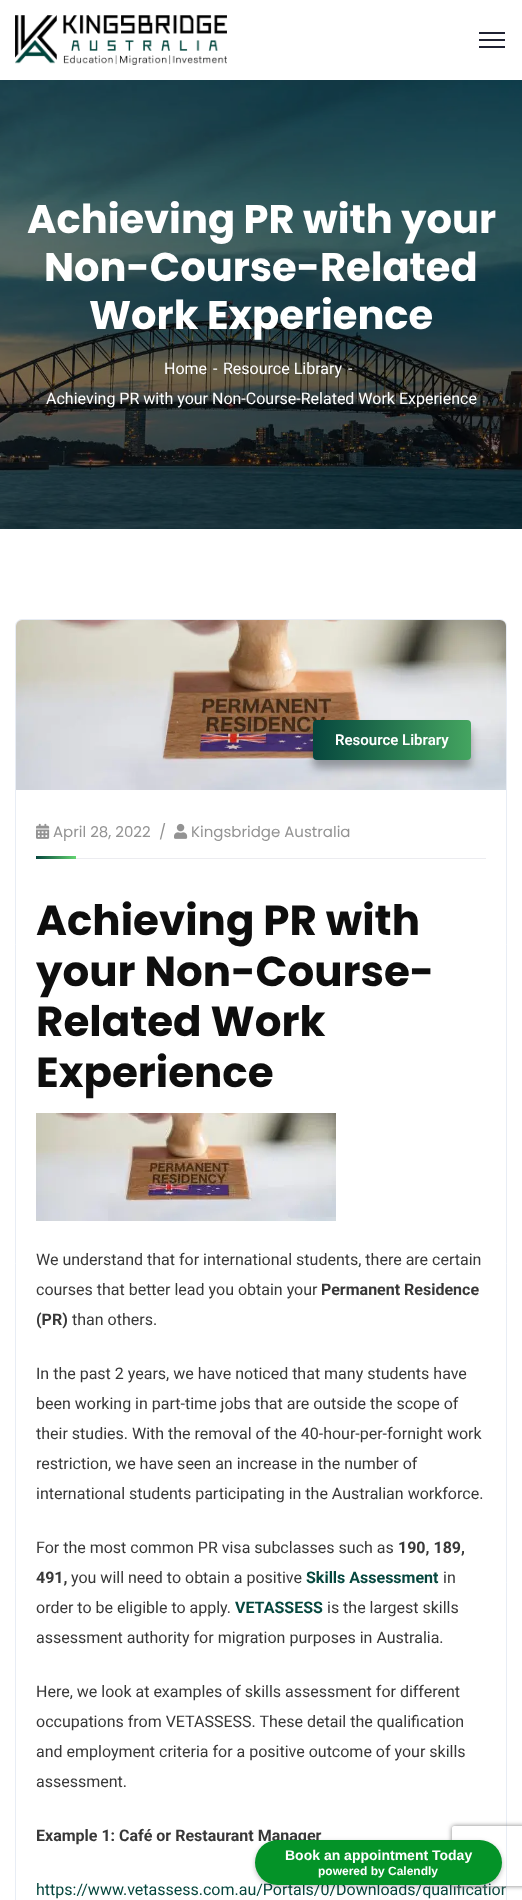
async function draw(canvas) {
	canvas.width = 522;
	canvas.height = 1900;
	const c = canvas.getContext('2d');
	c.miterLimit = 4;
	c.fontKerning = 'normal';
	async function loadImage(src) {
		const img = new Image();
		img.src = src;
		await img.decode();
		return img;
	}
	let gradient;

	c.fillStyle = '#fff';
	c.fillRect(0, 0, 522, 1900);
	c.drawImage(await loadImage('img1.png'), 15, 15, 212, 50);
	for (const [x, y, w, h, color] of [
		[479, 32, 26, 2, '#1f2233'],
		[479, 39, 26, 2, '#1f2233'],
		[479, 46, 26, 2, '#1f2233'],
	]) {
		c.fillStyle = color;
		c.fillRect(x, y, w, h);
	}
	c.drawImage(await loadImage('img2.png'), 0, 80, 522, 449);
	c.font = 'bold 40px Poppins';
	c.fillStyle = '#fff';
	for (const [text, x, y] of [
		['Achieving PR with your', 27, 233],
		['Non-Course-Related', 44, 281],
		['Work Experience', 89, 329],
	]) {
		c.fillText(text, x, y);
	}
	c.font = '16px Roboto';
	for (const [text, x, y] of [
		['Home', 164, 374],
		['-', 213, 374],
		['Resource Library', 223, 374],
		['-', 348, 374],
		['Achieving PR with your Non-Course-Related Work Experience', 46, 404],
	]) {
		c.fillText(text, x, y);
	}
	c.beginPath();
	c.roundRect(15.5, 619.5, 491, 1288, 6.5);
	c.strokeStyle = '#e8edf5';
	c.stroke();
	c.drawImage(await loadImage('img3.png'), 16, 620, 490, 170);
	c.fillStyle = '#0e0e0e57';
	c.filter = 'blur(4.5px)';
	c.beginPath();
	c.roundRect(313, 728, 158, 40, 4);
	c.fill();
	c.filter = 'none';
	gradient = c.createLinearGradient(313, 740, 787, 740);
	gradient.addColorStop(0, '#06473e');
	gradient.addColorStop(0.5, '#63d471');
	gradient.addColorStop(1, '#06473e');
	c.fillStyle = gradient;
	c.beginPath();
	c.roundRect(313, 720, 158, 40, 4);
	c.fill();
	c.font = '600 15px Roboto';
	c.fillStyle = '#fff';
	c.fillText('Resource Library', 335, 745);
	c.fillStyle = '#ececf0';
	c.fillRect(76, 858, 410, 1);
	c.drawImage(await loadImage('img4.png'), 36, 823, 14, 16);
	c.font = '15px Poppins';
	c.fillStyle = '#939393';
	c.fillText('April 28, 2022', 53, 837);
	c.fillText('/', 159, 837);
	c.drawImage(await loadImage('img5.png'), 174, 823, 14, 16);
	c.fillText('Kingsbridge Australia', 191, 837);
	gradient = c.createLinearGradient(36, 858, 76, 858);
	gradient.addColorStop(0, '#06473e');
	gradient.addColorStop(1, '#63d471');
	c.fillStyle = gradient;
	c.fillRect(36, 856, 40, 3);
	c.font = 'bold 42px Poppins';
	c.fillStyle = '#0e0e0e';
	for (const [text, x, y] of [
		['Achieving PR with', 36, 935],
		['your Non-Course-', 36, 986],
		['Related Work', 36, 1036],
		['Experience', 36, 1087],
	]) {
		c.fillText(text, x, y);
	}
	c.drawImage(await loadImage('img6.png'), 36, 1113, 300, 108);
	c.font = '16px Roboto';
	c.fillStyle = '#383838';
	c.fillText('We understand that for international students, there are certain', 36, 1265);
	c.fillText('courses that better lead you obtain your', 36, 1295);
	c.font = 'bold 16px Roboto';
	c.fillText('Permanent Residence', 321, 1295);
	c.fillText('(PR)', 36, 1325);
	c.font = '16px Roboto';
	for (const [text, x, y] of [
		['than others.', 72, 1325],
		['In the past 2 years, we have noticed that many students have', 36, 1379],
		['been working in part-time jobs that are outside the scope of', 36, 1409],
		['their studies. With the removal of the 40-hour-per-fornight work', 36, 1439],
		['restriction, we have seen an increase in the number of', 36, 1469],
		['international students participating in the Australian workforce.', 36, 1499],
		['For the most common PR visa subclasses such as', 36, 1553],
	]) {
		c.fillText(text, x, y);
	}
	c.font = 'bold 16px Roboto';
	c.fillText('190, 189,', 398, 1553);
	c.fillText('491,', 36, 1583);
	c.font = '16px Roboto';
	c.fillText('you will need to obtain a positive', 71, 1583);
	c.font = 'bold 16px Roboto';
	c.fillStyle = '#06473e';
	c.fillText('Skills Assessment', 306, 1583);
	c.font = '16px Roboto';
	c.fillStyle = '#383838';
	c.fillText('in', 443, 1583);
	c.fillText('order to be eligible to apply.', 36, 1613);
	c.font = 'bold 16px Roboto';
	c.fillStyle = '#06473e';
	c.fillText('VETASSESS', 235, 1613);
	c.font = '16px Roboto';
	c.fillStyle = '#383838';
	for (const [text, x, y] of [
		['is the largest skills', 327, 1613],
		['assessment authority for migration purposes in Australia.', 36, 1643],
		['Here, we look at examples of skills assessment for different', 36, 1697],
		['occupations from VETASSESS. These detail the qualification', 36, 1727],
		['and employment criteria for a positive outcome of your skills', 36, 1757],
		['assessment.', 36, 1787],
	]) {
		c.fillText(text, x, y);
	}
	c.font = 'bold 16px Roboto';
	c.fillText('Example 1: Café or Restaurant Manager', 36, 1841);
	c.save();
	c.beginPath();
	c.roundRect(16, 620, 490, 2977, 6);
	c.clip();
	c.font = '16px Roboto';
	c.fillStyle = '#06473e';
	c.fillText('https://www.vetassess.com.au/Portals/0/Downloads/qualification', 36, 1895);
	c.restore();
	c.fillStyle = '#00000040';
	c.filter = 'blur(2.5px)';
	c.beginPath();
	c.roundRect(255, 1842, 247, 45, 22.5);
	c.fill();
	c.filter = 'none';
	c.save();
	c.beginPath();
	c.moveTo(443, 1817);
	c.lineTo(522, 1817);
	c.lineTo(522, 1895);
	c.lineTo(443, 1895);
	c.closePath();
	c.moveTo(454, 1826);
	c.lineTo(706, 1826);
	c.bezierCurveTo(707, 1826, 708, 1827, 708, 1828);
	c.lineTo(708, 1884);
	c.bezierCurveTo(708, 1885, 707, 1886, 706, 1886);
	c.lineTo(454, 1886);
	c.bezierCurveTo(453, 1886, 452, 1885, 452, 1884);
	c.lineTo(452, 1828);
	c.bezierCurveTo(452, 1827, 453, 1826, 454, 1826);
	c.closePath();
	c.clip('evenodd');
	c.fillStyle = '#808080';
	c.filter = 'blur(2.5px)';
	c.beginPath();
	c.roundRect(452, 1826, 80, 60, 2);
	c.fill();
	c.filter = 'none';
	c.restore();
	c.fillStyle = '#049328';
	c.beginPath();
	c.roundRect(255, 1840, 247, 45, 22.5);
	c.fill();
	c.font = 'bold 14px Liberation Sans';
	c.fillStyle = '#fff';
	c.fillText('Book an appointment Today', 285, 1860);
	c.font = 'bold 12px Liberation Sans';
	c.fillText('powered by Calendly', 318, 1875);
}

draw(document.querySelector('canvas'));
